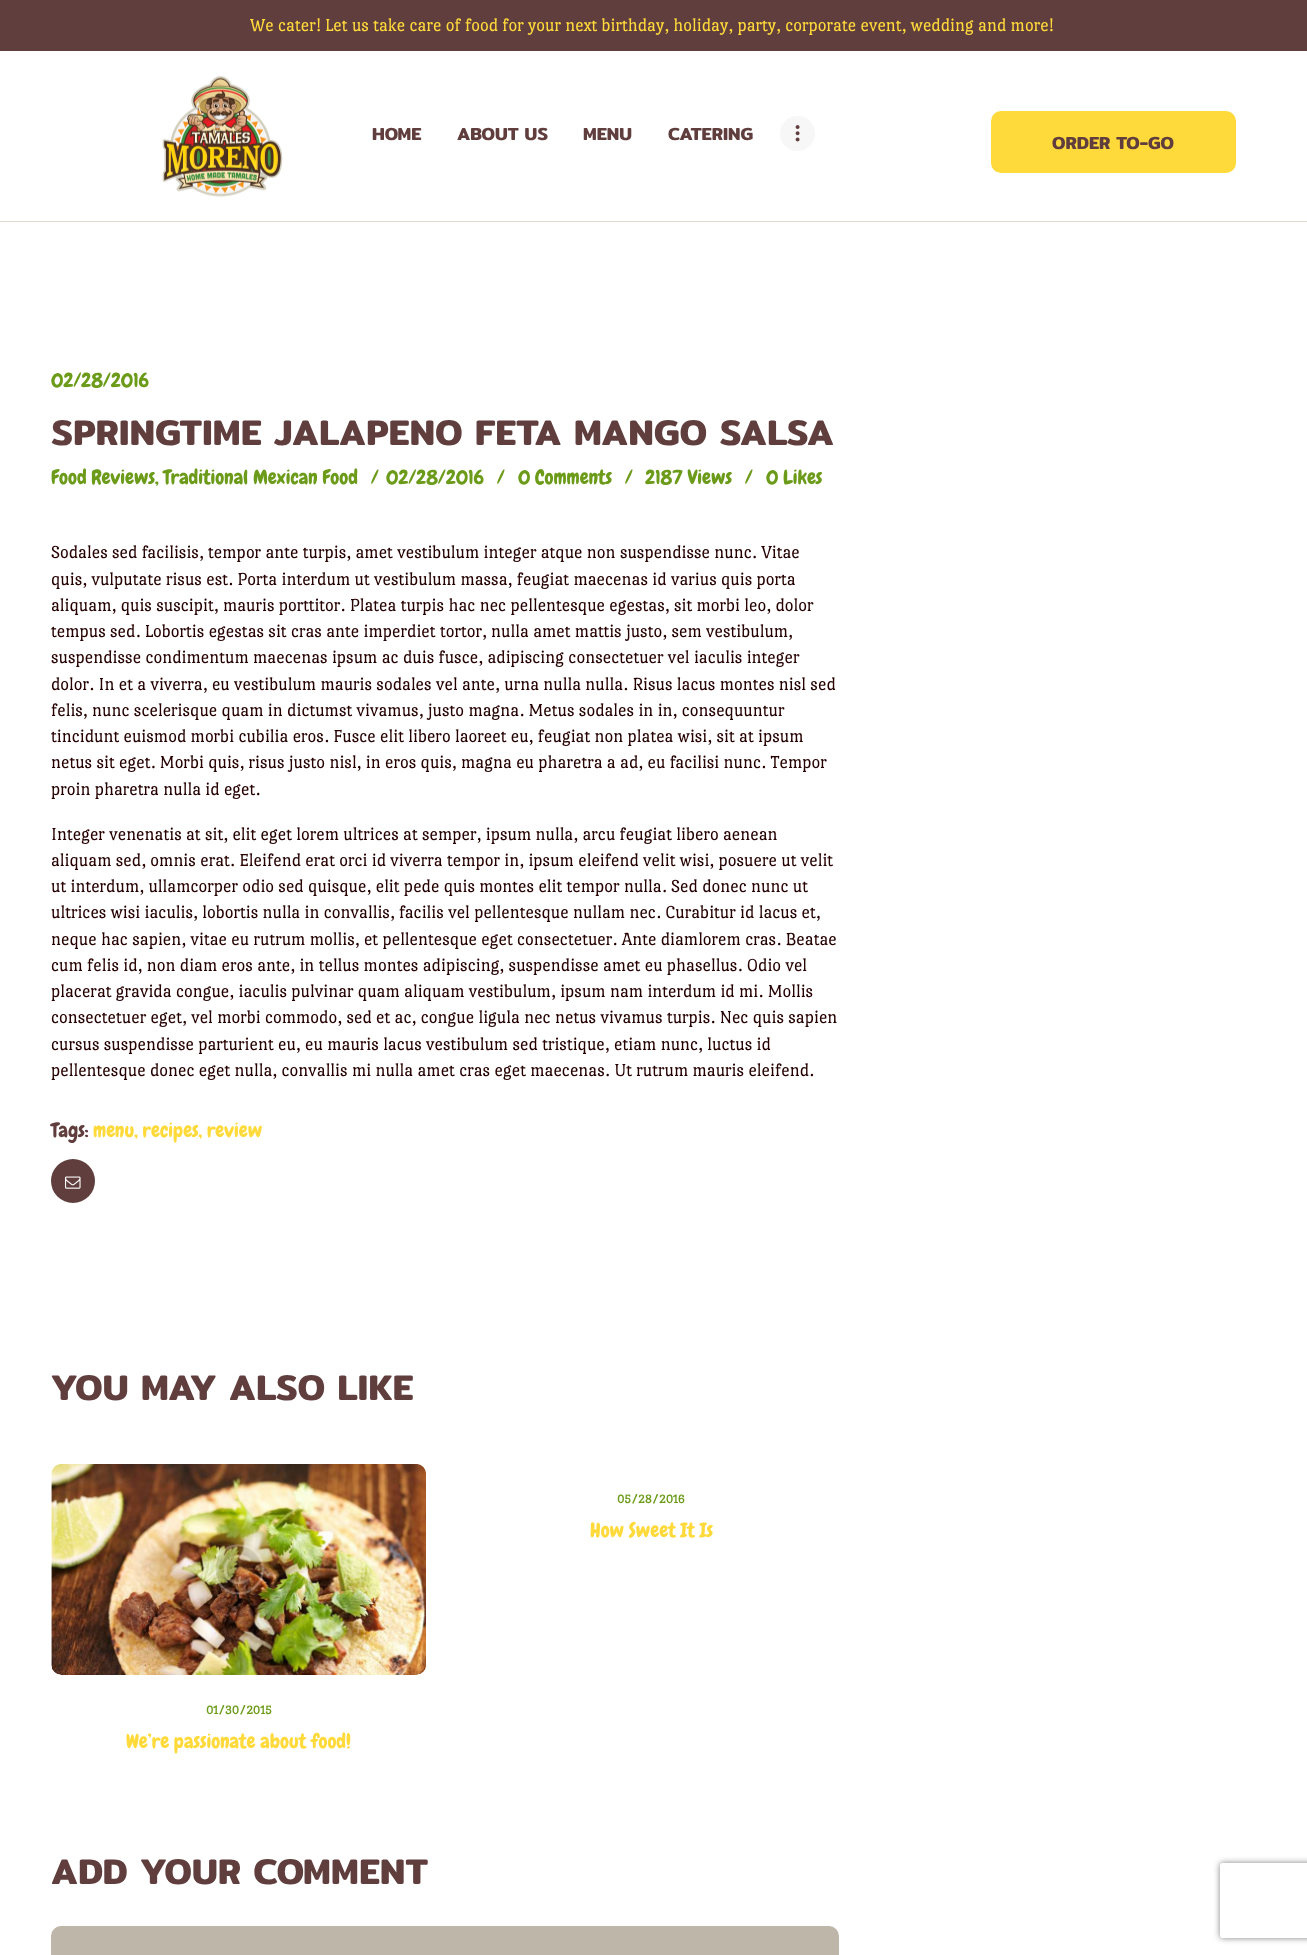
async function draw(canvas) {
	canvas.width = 1307;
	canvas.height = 1955;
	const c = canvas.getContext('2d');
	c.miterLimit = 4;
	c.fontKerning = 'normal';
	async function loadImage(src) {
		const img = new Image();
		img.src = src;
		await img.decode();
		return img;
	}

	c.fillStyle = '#fff';
	c.fillRect(0, 0, 1307, 1955);
	c.fillStyle = '#613e3e';
	c.fillRect(0, 0, 1307, 51);
	c.font = '18.75px Port Lligat Slab';
	c.fillStyle = '#ffda3a';
	c.fillText('We cater! Let us take care of food for your next birthday, holiday, party, corporate event, wedding and more!', 250, 31);
	c.fillStyle = '#dfd8cd';
	c.fillRect(0, 221, 1307, 1);
	c.drawImage(await loadImage('img1.png'), 162, 75, 121, 122);
	c.font = '600 17.75px Mitr';
	c.fillStyle = '#613e3e';
	for (const [text, x, y] of [
		['HOME', 372, 140],
		['ABOUT US', 457, 140],
		['MENU', 583, 140],
		['CATERING', 668, 140],
	]) {
		c.fillText(text, x, y);
	}
	c.fillStyle = '#f7f7f7';
	c.beginPath();
	c.arc(797.5, 133.5, 17.5, 0, 2 * Math.PI);
	c.fill();
	c.drawImage(await loadImage('img2.png'), 795, 125, 5, 17);
	c.fillStyle = '#ffda3a';
	c.beginPath();
	c.roundRect(991, 111, 245, 62, 10);
	c.fill();
	c.fillStyle = '#613e3e';
	c.fillText('ORDER TO-GO', 1052, 149);
	c.font = '20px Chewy';
	c.fillStyle = '#6c9b1a';
	c.fillText('02/28/2016', 51, 387);
	c.letterSpacing = '0.35px';
	c.font = '600 36px Mitr';
	c.fillStyle = '#613e3e';
	c.fillText('SPRINGTIME JALAPENO FETA MANGO SALSA', 51, 445);
	c.letterSpacing = '0px';
	c.font = '20px Chewy';
	c.fillStyle = '#6c9b1a';
	for (const [text, x, y] of [
		['Food Reviews, Traditional Mexican Food', 51, 484],
		['/', 371, 484],
		['02/28/2016', 386, 484],
		['/', 497, 484],
		['0 Comments', 518, 484],
		['/', 625, 484],
		['2187 Views', 645, 484],
		['/', 745, 484],
		['0 Likes', 766, 484],
	]) {
		c.fillText(text, x, y);
	}
	c.font = '18.75px Port Lligat Slab';
	c.fillStyle = '#260000';
	for (const [text, x, y] of [
		['Sodales sed facilisis, tempor ante turpis, amet vestibulum integer atque non suspendisse nunc. Vitae', 51, 558],
		['quis, vulputate risus est. Porta interdum ut vestibulum massa, feugiat maecenas id varius quis porta', 51, 585],
		['aliquam, quis suscipit, mauris porttitor. Platea turpis hac nec pellentesque egestas, sit morbi leo, dolor', 51, 611],
		['tempus sed. Lobortis egestas sit cras ante imperdiet tortor, nulla amet mattis justo, sem vestibulum,', 51, 637],
		['suspendisse condimentum maecenas ipsum ac duis fusce, adipiscing consectetuer vel iaculis integer', 51, 663],
		['dolor. In et a viverra, eu vestibulum mauris sodales vel ante, urna nulla nulla. Risus lacus montes nisl sed', 51, 690],
		['felis, nunc scelerisque quam in dictumst vivamus, justo magna. Metus sodales in in, consequuntur', 51, 716],
		['tincidunt euismod morbi cubilia eros. Fusce elit libero laoreet eu, feugiat non platea wisi, sit at ipsum', 51, 742],
		['netus sit eget. Morbi quis, risus justo nisl, in eros quis, magna eu pharetra a ad, eu facilisi nunc. Tempor', 51, 768],
		['proin pharetra nulla id eget.', 51, 795],
		['Integer venenatis at sit, elit eget lorem ultrices at semper, ipsum nulla, arcu feugiat libero aenean', 51, 840],
		['aliquam sed, omnis erat. Eleifend erat orci id viverra tempor in, ipsum eleifend velit wisi, posuere ut velit', 51, 866],
		['ut interdum, ullamcorper odio sed quisque, elit pede quis montes elit tempor nulla. Sed donec nunc ut', 51, 892],
		['ultrices wisi iaculis, lobortis nulla in convallis, facilis vel pellentesque nullam nec. Curabitur id lacus et,', 51, 918],
		['neque hac sapien, vitae eu rutrum mollis, et pellentesque eget consectetuer. Ante diamlorem cras. Beatae', 51, 945],
		['cum felis id, non diam eros ante, in tellus montes adipiscing, suspendisse amet eu phasellus. Odio vel', 51, 971],
		['placerat gravida congue, iaculis pulvinar quam aliquam vestibulum, ipsum nam interdum id mi. Mollis', 51, 997],
		['consectetuer eget, vel morbi commodo, sed et ac, congue ligula nec netus vivamus turpis. Nec quis sapien', 51, 1023],
		['cursus suspendisse parturient eu, eu mauris lacus vestibulum sed tristique, etiam nunc, luctus id', 51, 1050],
		['pellentesque donec eget nulla, convallis mi nulla amet cras eget maecenas. Ut rutrum mauris eleifend.', 51, 1076],
	]) {
		c.fillText(text, x, y);
	}
	c.font = '20px Chewy';
	c.fillStyle = '#613e3e';
	c.fillText('Tags:', 51, 1137);
	c.fillStyle = '#ffda3a';
	c.fillText('menu, recipes, review', 93, 1137);
	c.fillStyle = '#613e3e';
	c.beginPath();
	c.arc(73, 1181, 22, 0, 2 * Math.PI);
	c.fill();
	c.drawImage(await loadImage('img3.png'), 65, 1176, 16, 13);
	c.letterSpacing = '0.35px';
	c.font = '600 36px Mitr';
	c.fillText('YOU MAY ALSO LIKE', 51, 1400);
	c.letterSpacing = '0px';
	c.font = 'bold 12.5px Port Lligat Slab';
	c.fillStyle = '#6c9b1a';
	c.fillText('05/28/2016', 617, 1503);
	c.font = '20px Chewy';
	c.fillStyle = '#ffda3a';
	c.fillText('How Sweet It Is', 590, 1537);
	c.drawImage(await loadImage('img4.png'), 51, 1464, 375, 211);
	c.font = 'bold 12.5px Port Lligat Slab';
	c.fillStyle = '#6c9b1a';
	c.fillText('01/30/2015', 206, 1714);
	c.font = '20px Chewy';
	c.fillStyle = '#ffda3a';
	c.fillText('We’re passionate about food!', 126, 1748);
	c.letterSpacing = '0.35px';
	c.font = '600 36px Mitr';
	c.fillStyle = '#613e3e';
	c.fillText('ADD YOUR COMMENT', 51, 1884);
	c.fillStyle = '#bdb6a9';
	c.beginPath();
	c.roundRect(52.5, 1927.5, 785, 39, 8.5);
	c.fill();
	c.strokeStyle = '#bdb6a9';
	c.lineWidth = 3;
	c.stroke();
	c.save();
	c.beginPath();
	c.moveTo(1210, 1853);
	c.lineTo(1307, 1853);
	c.lineTo(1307, 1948);
	c.lineTo(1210, 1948);
	c.closePath();
	c.moveTo(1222.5, 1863);
	c.lineTo(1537.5, 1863);
	c.bezierCurveTo(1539, 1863, 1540, 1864, 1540, 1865.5);
	c.lineTo(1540, 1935.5);
	c.bezierCurveTo(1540, 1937, 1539, 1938, 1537.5, 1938);
	c.lineTo(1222.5, 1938);
	c.bezierCurveTo(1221, 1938, 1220, 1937, 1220, 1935.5);
	c.lineTo(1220, 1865.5);
	c.bezierCurveTo(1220, 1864, 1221, 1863, 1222.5, 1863);
	c.closePath();
	c.clip('evenodd');
	c.fillStyle = '#808080';
	c.filter = 'blur(3px)';
	c.beginPath();
	c.roundRect(1220, 1863, 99, 75, 2.5);
	c.fill();
	c.filter = 'none';
	c.restore();
}

draw(document.querySelector('canvas'));
